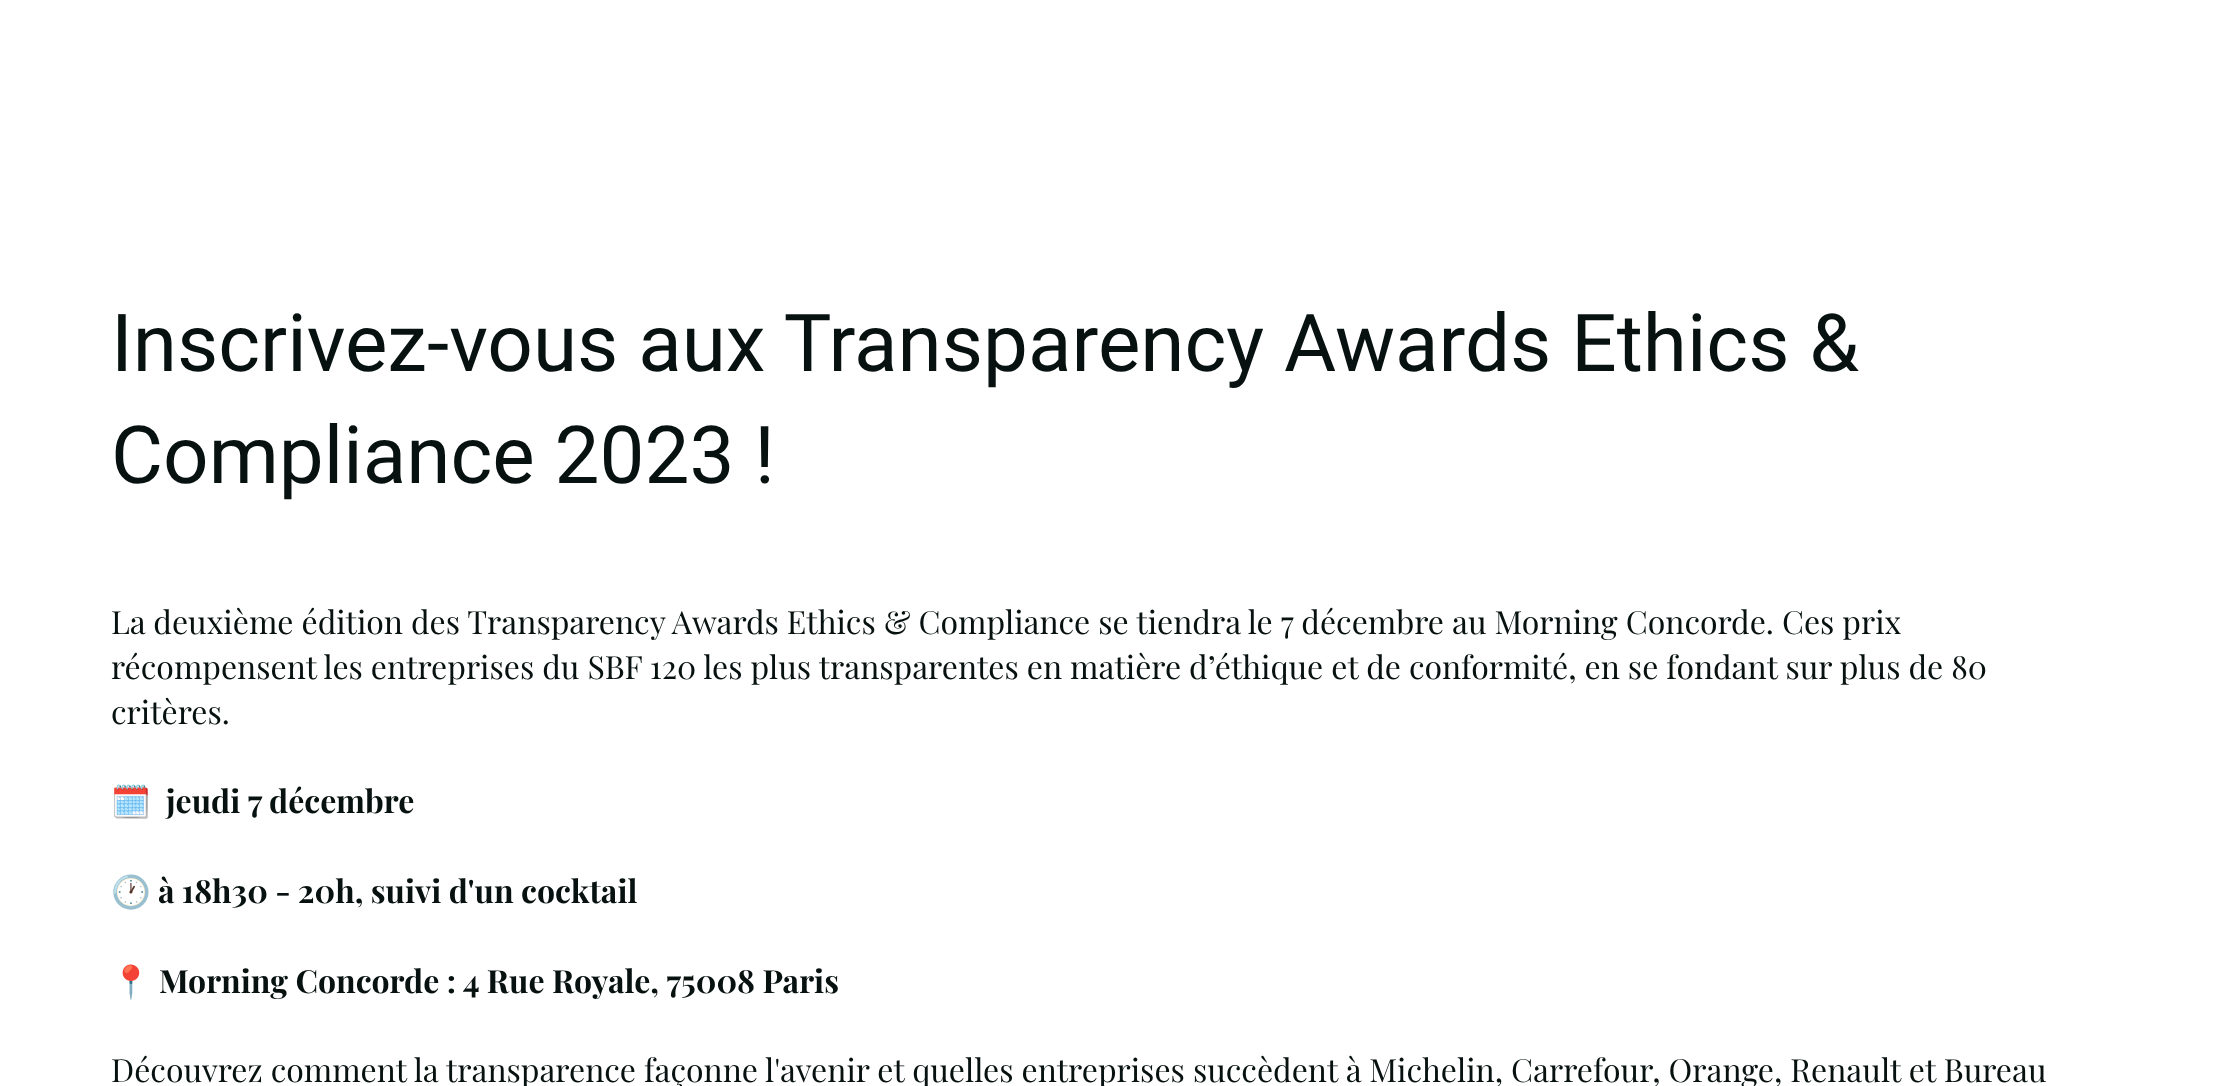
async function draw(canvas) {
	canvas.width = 2221;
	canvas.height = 1086;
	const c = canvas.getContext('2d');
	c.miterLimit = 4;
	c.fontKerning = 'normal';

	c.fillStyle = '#fff';
	c.fillRect(0, 0, 2221, 1086);
	c.font = '80px Roboto';
	c.fillStyle = '#071110';
	c.fillText('Inscrivez-vous aux Transparency Awards Ethics &', 111, 371);
	c.fillText('Compliance 2023 !', 111, 483);
	c.font = '32px Playfair Display';
	for (const [text, x, y] of [
		['La deuxième édition des Transparency Awards Ethics & Compliance se tiendra le 7 décembre au Morning Concorde. Ces prix', 111, 634],
		['récompensent les entreprises du SBF 120 les plus transparentes en matière d’éthique et de conformité, en se fondant sur plus de 80', 111, 679],
		['critères.', 111, 724],
	]) {
		c.fillText(text, x, y);
	}
	c.font = '32px Noto Color Emoji';
	c.fillText('🗓️', 111, 813);
	c.font = 'bold 32px Playfair Display';
	c.fillText('jeudi 7 décembre', 166, 813);
	c.font = 'bold 32px Noto Color Emoji';
	c.fillText('🕐', 111, 903);
	c.font = 'bold 32px Playfair Display';
	c.fillText('à 18h30 - 20h, suivi d\'un cocktail', 158, 903);
	c.font = '32px Noto Color Emoji';
	c.fillText('📍', 111, 993);
	c.font = 'bold 32px Playfair Display';
	c.fillText('Morning Concorde : 4 Rue Royale, 75008 Paris', 159, 993);
	c.font = '32px Playfair Display';
	c.fillText('Découvrez comment la transparence façonne l\'avenir et quelles entreprises succèdent à Michelin, Carrefour, Orange, Renault et Bureau', 111, 1082);
}

draw(document.querySelector('canvas'));
